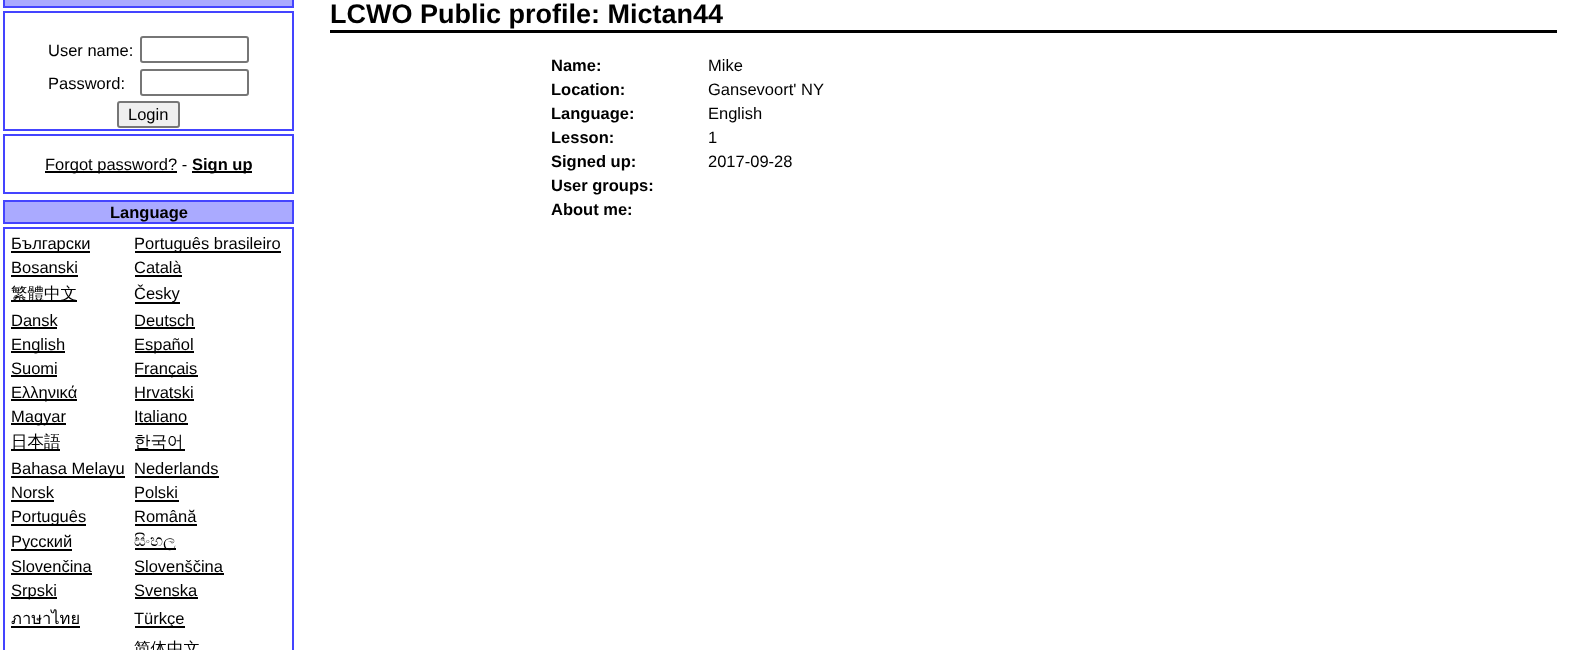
async function draw(canvas) {
	canvas.width = 1586;
	canvas.height = 650;
	const c = canvas.getContext('2d');
	c.miterLimit = 4;
	c.fontKerning = 'normal';

	c.fillStyle = '#fff';
	c.fillRect(0, 0, 1586, 650);
	c.fillStyle = '#aaf';
	c.beginPath();
	c.rect(4, -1, 289, 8);
	c.fill();
	c.strokeStyle = '#44f';
	c.lineWidth = 2;
	c.stroke();
	c.strokeRect(4, 12, 289, 118);
	c.font = '16.5px Liberation Sans';
	c.fillStyle = '#000';
	c.fillText('User name:', 48, 56);
	c.beginPath();
	c.roundRect(141, 37, 107, 25, 2);
	c.strokeStyle = '#767676';
	c.stroke();
	c.fillText('Password:', 48, 89);
	c.beginPath();
	c.roundRect(141, 70, 107, 25, 2);
	c.stroke();
	c.fillStyle = '#efefef';
	c.beginPath();
	c.roundRect(118, 102, 61, 25, 2);
	c.fill();
	c.stroke();
	c.fillStyle = '#000';
	c.fillText('Login', 128, 120);
	c.strokeStyle = '#44f';
	c.strokeRect(4, 135, 289, 58);
	c.fillRect(45, 171, 132, 2);
	c.fillText('Forgot password? -', 45, 170);
	c.fillRect(192, 171, 60, 2);
	c.font = 'bold 16.5px Liberation Sans';
	c.fillText('Sign up', 192, 170);
	c.fillStyle = '#aaf';
	c.beginPath();
	c.rect(4, 201, 289, 22);
	c.fill();
	c.stroke();
	c.fillStyle = '#000';
	c.fillText('Language', 110, 218);
	c.strokeRect(4, 228, 289, 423);
	c.fillRect(11, 251, 79, 2);
	c.font = '16.5px Liberation Sans';
	c.fillText('Български', 11, 249);
	c.fillRect(135, 251, 146, 2);
	c.fillText('Português brasileiro', 134, 249);
	c.fillText('Bosanski', 11, 273);
	c.fillRect(11, 275, 67, 2);
	c.fillText('Català', 134, 273);
	c.fillRect(135, 275, 47, 2);
	c.fillRect(11, 300, 66, 2);
	c.font = '500 16.5px WenQuanYi Zen Hei';
	c.fillText('繁體中文', 11, 299);
	c.fillRect(135, 302, 45, 2);
	c.font = '16.5px Liberation Sans';
	c.fillText('Česky', 134, 299);
	c.fillText('Dansk', 11, 326);
	c.fillRect(11, 327, 46, 2);
	c.fillText('Deutsch', 134, 326);
	c.fillRect(135, 327, 60, 2);
	c.fillRect(11, 351, 54, 2);
	c.fillText('English', 11, 350);
	c.fillRect(135, 351, 59, 2);
	c.fillText('Español', 134, 350);
	c.fillText('Suomi', 11, 374);
	c.fillRect(11, 375, 46, 2);
	c.fillRect(135, 375, 63, 2);
	c.fillText('Français', 134, 374);
	c.fillRect(11, 399, 66, 2);
	c.fillText('Ελληνικά', 11, 398);
	c.fillText('Hrvatski', 134, 398);
	c.fillRect(135, 399, 59, 2);
	c.fillRect(11, 423, 55, 2);
	c.fillText('Magyar', 11, 422);
	c.fillText('Italiano', 134, 422);
	c.fillRect(135, 423, 53, 2);
	c.fillRect(11, 449, 49, 2);
	c.font = '500 16.5px WenQuanYi Zen Hei';
	c.fillText('日本語', 11, 447);
	c.fillRect(135, 449, 50, 2);
	c.fillText('한국어', 134, 447);
	c.fillRect(11, 476, 114, 2);
	c.font = '16.5px Liberation Sans';
	c.fillText('Bahasa Melayu', 11, 474);
	c.fillText('Nederlands', 134, 474);
	c.fillRect(135, 476, 84, 2);
	c.fillText('Norsk', 11, 498);
	c.fillRect(11, 500, 43, 2);
	c.fillText('Polski', 134, 498);
	c.fillRect(135, 500, 44, 2);
	c.fillRect(11, 524, 75, 2);
	c.fillText('Português', 11, 522);
	c.fillText('Română', 134, 522);
	c.fillRect(135, 524, 62, 2);
	c.fillRect(11, 549, 61, 2);
	c.fillText('Русский', 11, 547);
	c.fillRect(135, 548, 41, 2);
	c.font = '16.5px FreeSerif';
	c.fillText('සිංහල', 134, 546);
	c.font = '16.5px Liberation Sans';
	c.fillText('Slovenčina', 11, 572);
	c.fillRect(11, 573, 81, 2);
	c.fillText('Slovenščina', 134, 572);
	c.fillRect(135, 573, 89, 2);
	c.fillRect(11, 597, 46, 2);
	c.fillText('Srpski', 11, 596);
	c.fillText('Svenska', 134, 596);
	c.fillRect(135, 597, 63, 2);
	c.font = '16.5px Loma';
	c.fillText('ภาษาไทย', 11, 624);
	c.fillRect(11, 626, 69, 2);
	c.fillRect(135, 626, 50, 2);
	c.font = '16.5px Liberation Sans';
	c.fillText('Türkçe', 134, 624);
	c.font = '500 16.5px WenQuanYi Zen Hei';
	c.fillText('简体中文', 134, 654);
	c.fillRect(330, 30, 1227, 3);
	c.font = 'bold 27px Liberation Sans';
	c.fillText('LCWO Public profile: Mictan44', 330, 23);
	c.font = 'bold 16.5px Liberation Sans';
	c.fillText('Name:', 551, 71);
	c.font = '16.5px Liberation Sans';
	c.fillText('Mike', 708, 71);
	c.font = 'bold 16.5px Liberation Sans';
	c.fillText('Location:', 551, 95);
	c.font = '16.5px Liberation Sans';
	c.fillText('Gansevoort\' NY', 708, 95);
	c.font = 'bold 16.5px Liberation Sans';
	c.fillText('Language:', 551, 119);
	c.font = '16.5px Liberation Sans';
	c.fillText('English', 708, 119);
	c.font = 'bold 16.5px Liberation Sans';
	c.fillText('Lesson:', 551, 143);
	c.font = '16.5px Liberation Sans';
	c.fillText('1', 708, 143);
	c.font = 'bold 16.5px Liberation Sans';
	c.fillText('Signed up:', 551, 167);
	c.font = '16.5px Liberation Sans';
	c.fillText('2017-09-28', 708, 167);
	c.font = 'bold 16.5px Liberation Sans';
	c.fillText('User groups:', 551, 191);
	c.fillText('About me:', 551, 215);
}

draw(document.querySelector('canvas'));
